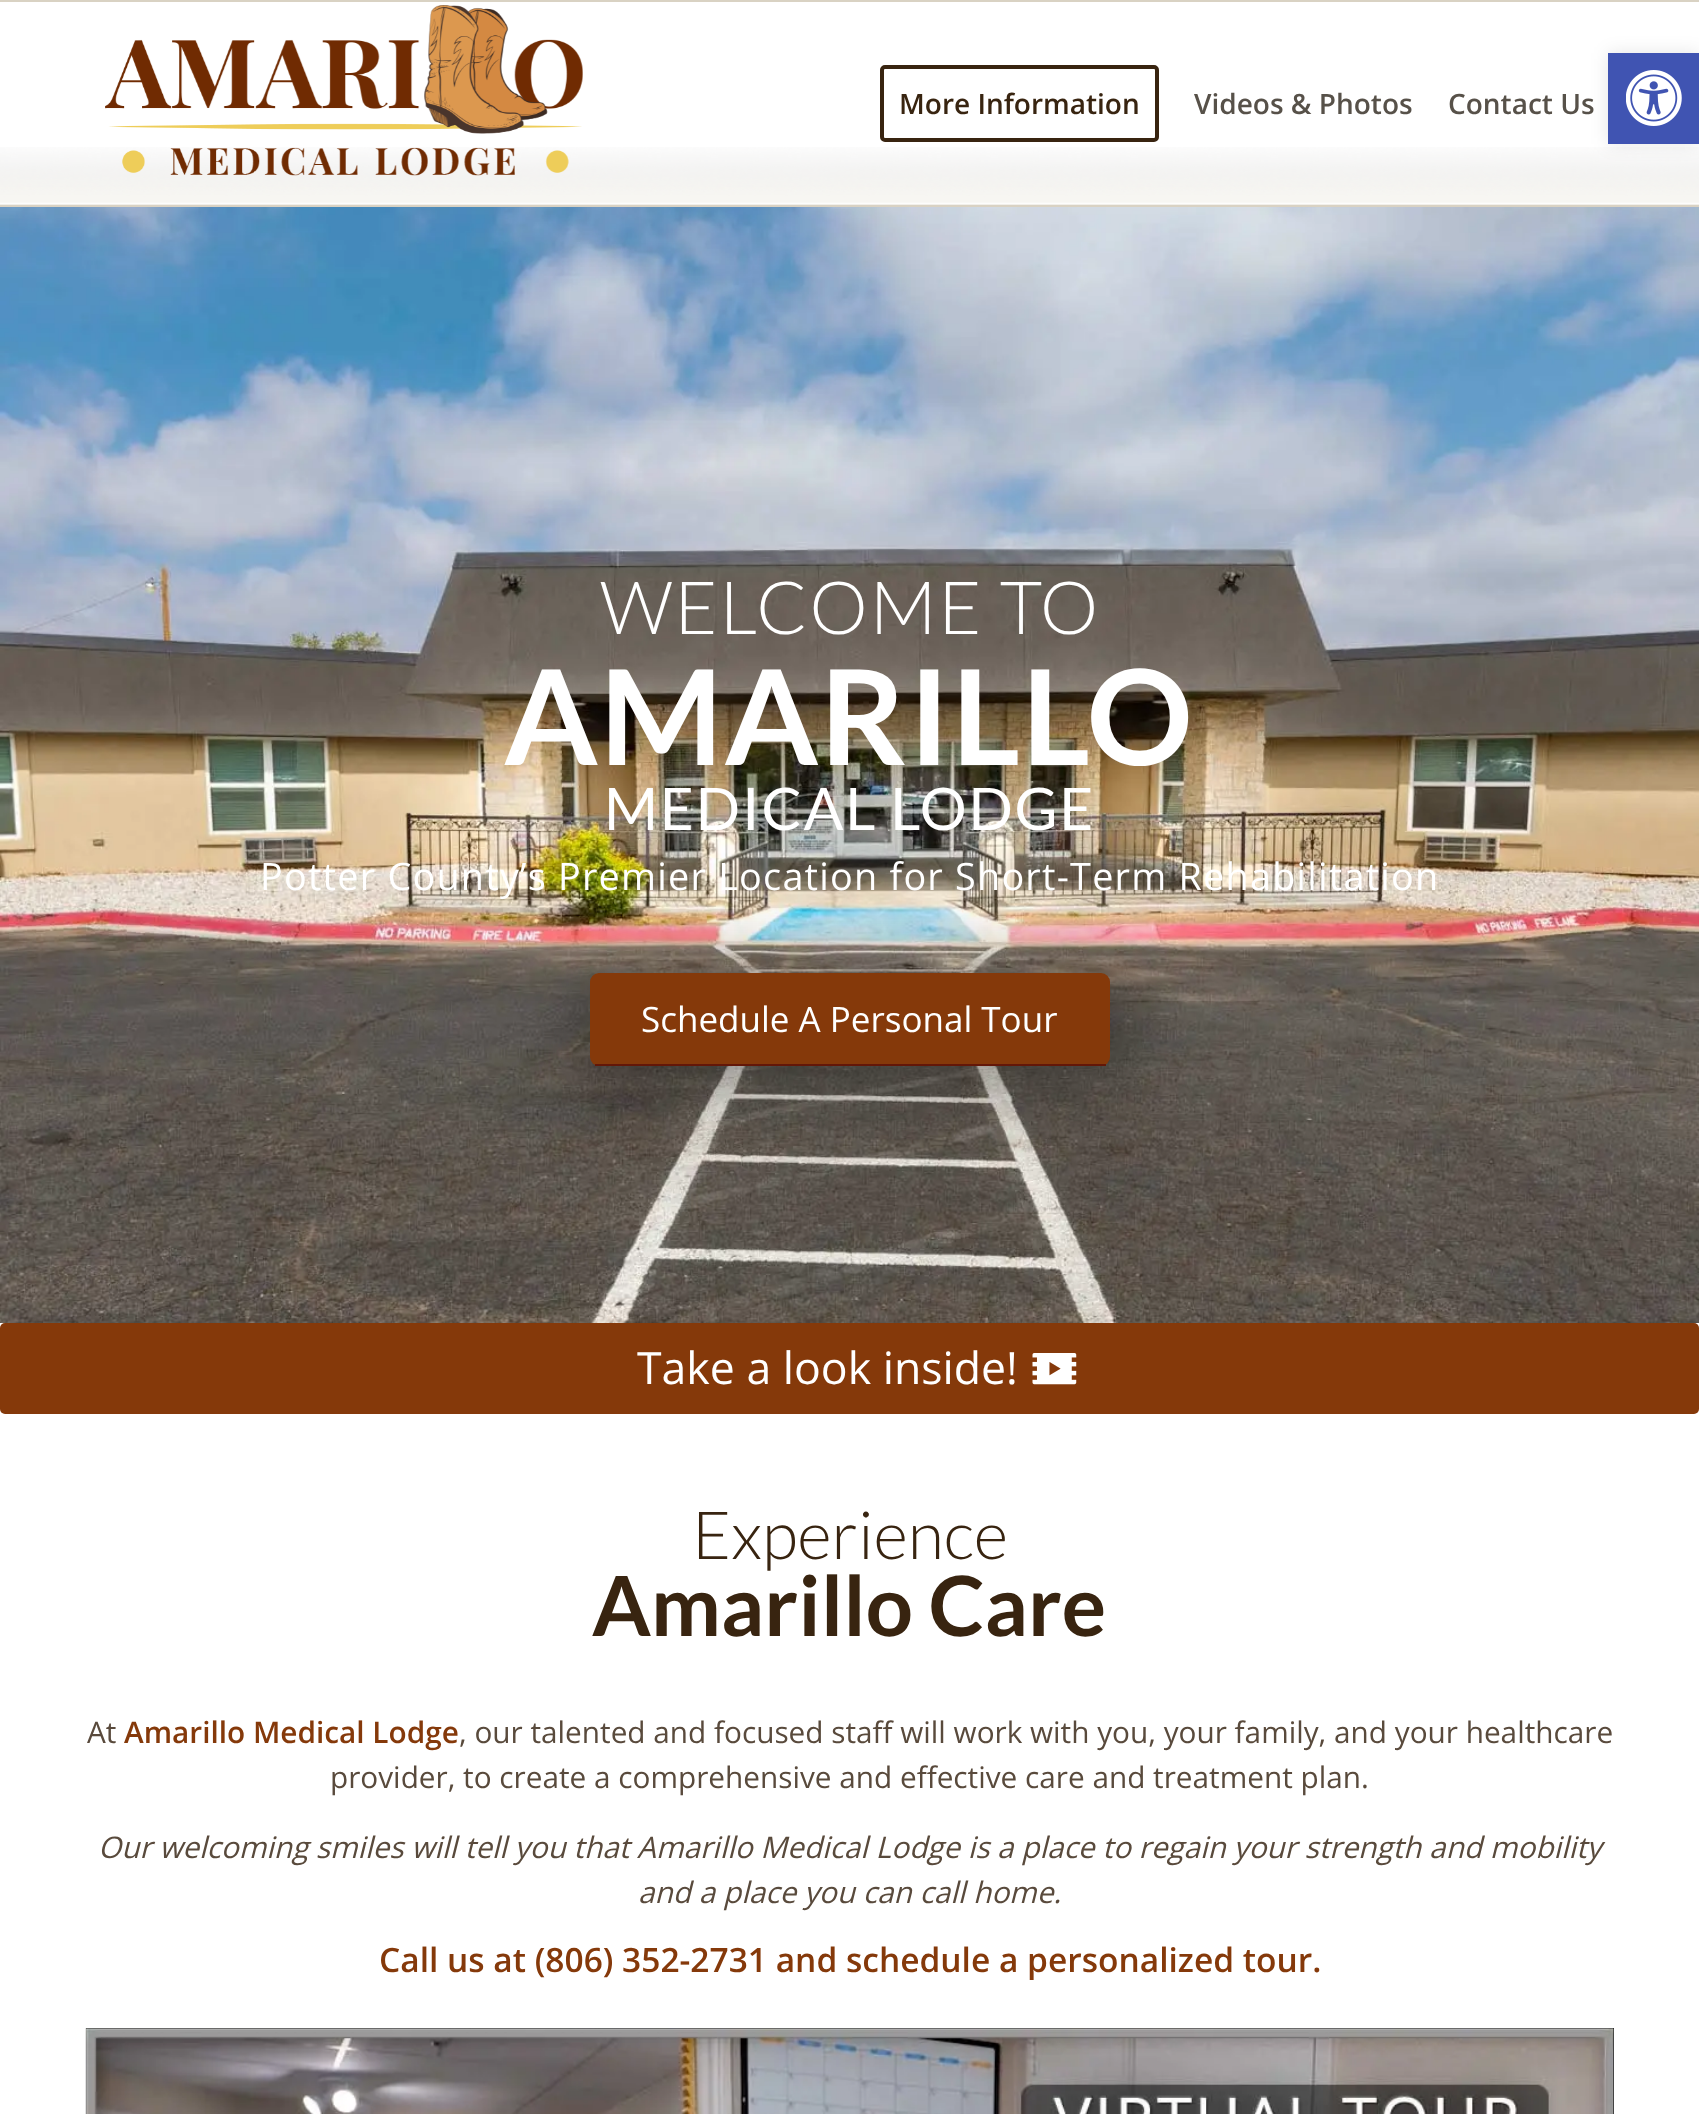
async function draw(canvas) {
	canvas.width = 1699;
	canvas.height = 2114;
	const c = canvas.getContext('2d');
	c.miterLimit = 4;
	c.fontKerning = 'normal';
	async function loadImage(src) {
		const img = new Image();
		img.src = src;
		await img.decode();
		return img;
	}

	c.fillStyle = '#fff';
	c.fillRect(0, 0, 1699, 2114);
	c.fillStyle = '#d9d2c3';
	c.fillRect(0, 0, 1699, 2);
	c.fillRect(0, 205, 1699, 2);
	c.drawImage(await loadImage('img2.png'), 0, 147, 1699, 58);
	c.drawImage(await loadImage('img1.png'), 105, 5, 478, 171);
	c.beginPath();
	c.roundRect(882, 67, 275, 73, 3);
	c.strokeStyle = '#382410';
	c.lineWidth = 4;
	c.stroke();
	c.font = '600 28px Open Sans';
	c.fillStyle = '#382410';
	c.fillText('More Information', 899, 114);
	c.fillStyle = '#575149';
	c.fillText('Videos & Photos', 1194, 114);
	c.fillText('Contact Us', 1448, 114);
	c.drawImage(await loadImage('img3.png'), 0, 207, 1699, 1116);
	c.letterSpacing = '1.75px';
	c.font = '300 73.5px Lato';
	c.fillStyle = '#fff';
	c.fillText('WELCOME TO', 600, 634);
	c.font = 'bold 132.25px Lato';
	c.fillText('AMARILLO', 504, 765);
	c.font = '58.75px Lato';
	c.fillText('MEDICAL LODGE', 604, 830);
	c.letterSpacing = '1.22px';
	c.font = '37.8px Open Sans';
	c.fillText('Potter County’s Premier Location for Short-Term Rehabilitation', 260, 890);
	c.fillStyle = '#00000066';
	c.filter = 'blur(39.5px)';
	c.beginPath();
	c.roundRect(590, 973, 537, 110, 18);
	c.fill();
	c.filter = 'none';
	c.fillStyle = '#85390a';
	c.beginPath();
	c.roundRect(590, 973, 520, 93, 9);
	c.fill();
	c.fillStyle = '#631708';
	c.fillRect(595, 1064, 511, 2);
	c.letterSpacing = '0px';
	c.font = '35px Open Sans';
	c.fillStyle = '#fff';
	c.fillText('Schedule A Personal Tour', 641, 1032);
	c.fillStyle = '#85390a';
	c.beginPath();
	c.roundRect(0, 1323, 1699, 91, 5);
	c.fill();
	c.font = '44.6px Open Sans';
	c.fillStyle = '#fff';
	c.fillText('Take a look inside!', 637, 1384);
	c.drawImage(await loadImage('img4.png'), 1032, 1353, 45, 32);
	c.font = '300 66.5px Lato';
	c.fillStyle = '#382410';
	c.fillText('Experience', 692, 1559);
	c.font = 'bold 83px Lato';
	c.fillText('Amarillo Care', 592, 1636);
	c.font = '29.75px Open Sans';
	c.fillStyle = '#594a3c';
	c.fillText('At', 87, 1743);
	c.font = '600 29.75px Open Sans';
	c.fillStyle = '#85390a';
	c.fillText('Amarillo Medical Lodge', 124, 1743);
	c.font = '29.75px Open Sans';
	c.fillStyle = '#594a3c';
	c.fillText(', our talented and focused staff will work with you, your family, and your healthcare', 459, 1743);
	c.fillText('provider, to create a comprehensive and effective care and treatment plan.', 330, 1788);
	c.font = 'italic 29.75px Open Sans';
	c.fillText('Our welcoming smiles will tell you that Amarillo Medical Lodge is a place to regain your strength and mobility', 98, 1858);
	c.fillText('and a place you can call home.', 638, 1903);
	c.font = '600 33.5px Open Sans';
	c.fillStyle = '#85390a';
	c.fillText('Call us at (806) 352-2731 and schedule a personalized tour.', 379, 1972);
	c.fillStyle = '#000';
	c.fillRect(86, 2028, 1528, 86);
	c.drawImage(await loadImage('img5.png'), 85, 2028, 1529, 86);
	c.fillStyle = '#0000001a';
	c.filter = 'blur(9px)';
	c.beginPath();
	c.rect(1608, 53, 91, 91);
	c.fill();
	c.filter = 'none';
	c.fillStyle = '#4054b2';
	c.fillRect(1608, 53, 91, 91);
	c.drawImage(await loadImage('img6.png'), 1626, 70, 56, 56);
}

draw(document.querySelector('canvas'));
